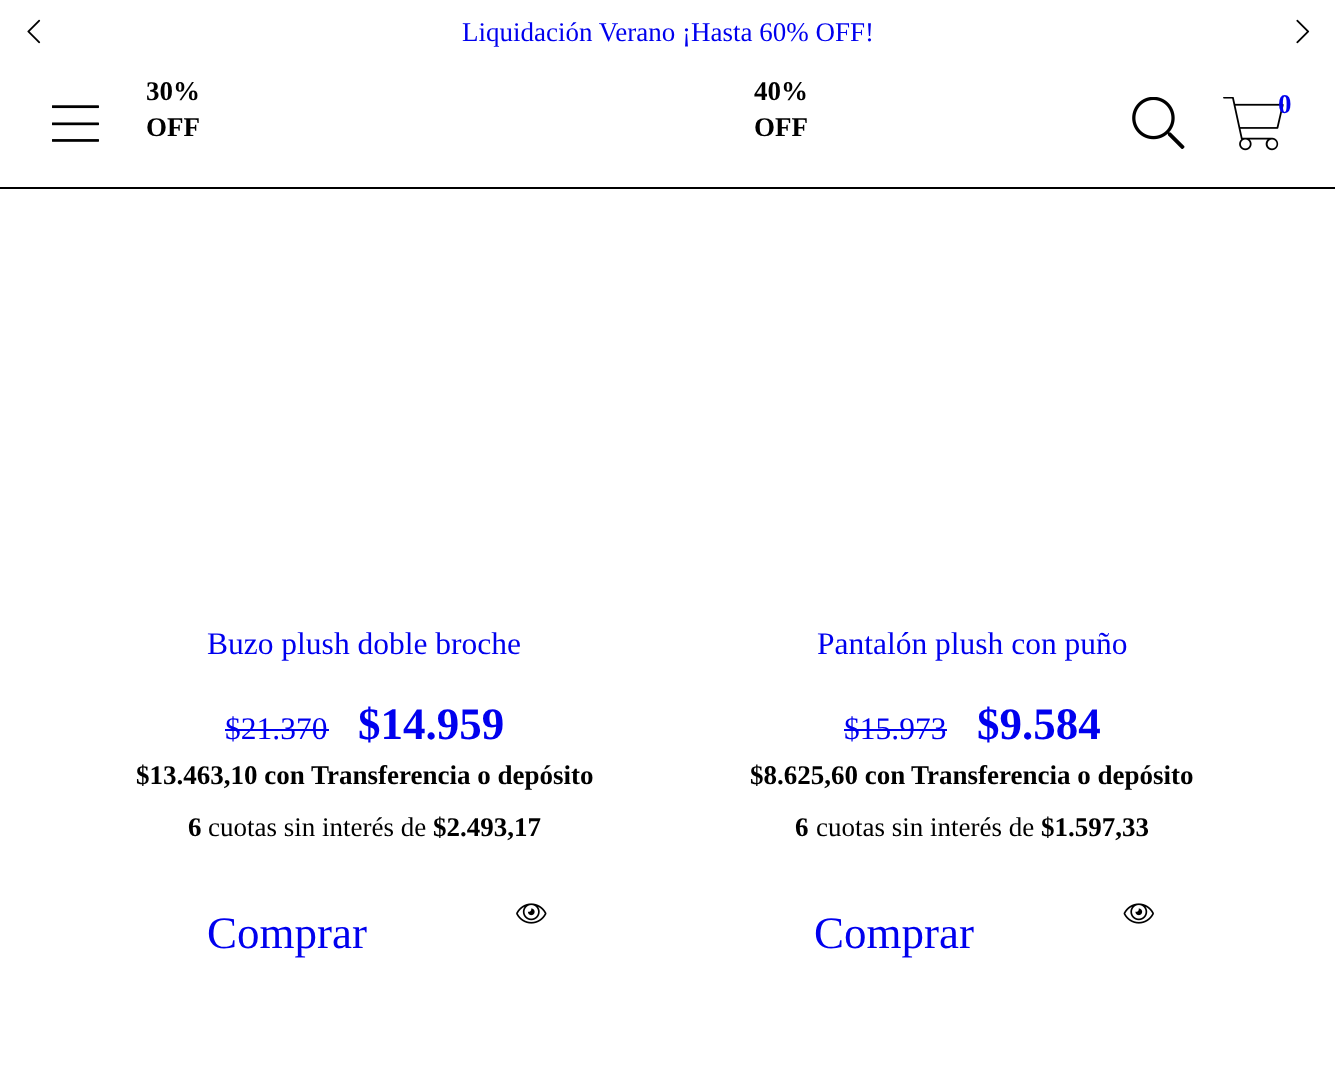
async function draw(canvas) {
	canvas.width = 1335;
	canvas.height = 1068;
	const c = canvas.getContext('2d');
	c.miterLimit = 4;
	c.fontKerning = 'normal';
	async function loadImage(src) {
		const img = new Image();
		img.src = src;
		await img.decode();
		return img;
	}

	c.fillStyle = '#fff';
	c.fillRect(0, 0, 1335, 1068);
	c.drawImage(await loadImage('img1.png'), 27, 19, 14, 25);
	c.font = '27px Liberation Serif';
	c.fillStyle = '#00e';
	c.fillText('Liquidación Verano ¡Hasta 60% OFF!', 462, 41);
	c.drawImage(await loadImage('img2.png'), 1296, 19, 14, 25);
	c.drawImage(await loadImage('img3.png'), 52, 105, 47, 37);
	c.drawImage(await loadImage('img4.png'), 1132, 97, 53, 52);
	c.drawImage(await loadImage('img5.png'), 1223, 97, 61, 54);
	c.font = 'bold 27px Liberation Serif';
	c.fillText('0', 1278, 113);
	c.fillStyle = '#000';
	c.fillRect(0, 187, 1335, 2);
	c.fillText('30%', 146, 100);
	c.fillText('OFF', 146, 136);
	c.font = '31.5px Liberation Serif';
	c.fillStyle = '#00e';
	c.fillText('Buzo plush doble broche', 207, 654);
	c.fillText('$21.370', 225, 739);
	c.fillRect(225, 729, 104, 2);
	c.font = 'bold 45px Liberation Serif';
	c.fillText('$14.959', 358, 739);
	c.font = 'bold 27px Liberation Serif';
	c.fillStyle = '#000';
	for (const [text, x, y] of [
		['$13.463,10 con', 136, 784],
		['Transferencia o depósito', 311, 784],
		['6', 188, 836],
	]) {
		c.fillText(text, x, y);
	}
	c.font = '27px Liberation Serif';
	c.fillText('cuotas sin interés de', 208, 836);
	c.font = 'bold 27px Liberation Serif';
	c.fillText('$2.493,17', 433, 836);
	c.drawImage(await loadImage('img6.png'), 516, 903, 31, 21);
	c.font = '45px Liberation Serif';
	c.fillStyle = '#00e';
	c.fillText('Comprar', 207, 948);
	c.font = 'bold 27px Liberation Serif';
	c.fillStyle = '#000';
	c.fillText('40%', 754, 100);
	c.fillText('OFF', 754, 136);
	c.font = '31.5px Liberation Serif';
	c.fillStyle = '#00e';
	c.fillText('Pantalón plush con puño', 817, 654);
	c.fillText('$15.973', 844, 739);
	c.fillRect(844, 729, 103, 2);
	c.font = 'bold 45px Liberation Serif';
	c.fillText('$9.584', 977, 739);
	c.font = 'bold 27px Liberation Serif';
	c.fillStyle = '#000';
	for (const [text, x, y] of [
		['$8.625,60 con', 750, 784],
		['Transferencia o depósito', 911, 784],
		['6', 795, 836],
	]) {
		c.fillText(text, x, y);
	}
	c.font = '27px Liberation Serif';
	c.fillText('cuotas sin interés de', 816, 836);
	c.font = 'bold 27px Liberation Serif';
	c.fillText('$1.597,33', 1041, 836);
	c.drawImage(await loadImage('img7.png'), 1123, 903, 31, 21);
	c.font = '45px Liberation Serif';
	c.fillStyle = '#00e';
	c.fillText('Comprar', 814, 948);
}

draw(document.querySelector('canvas'));
